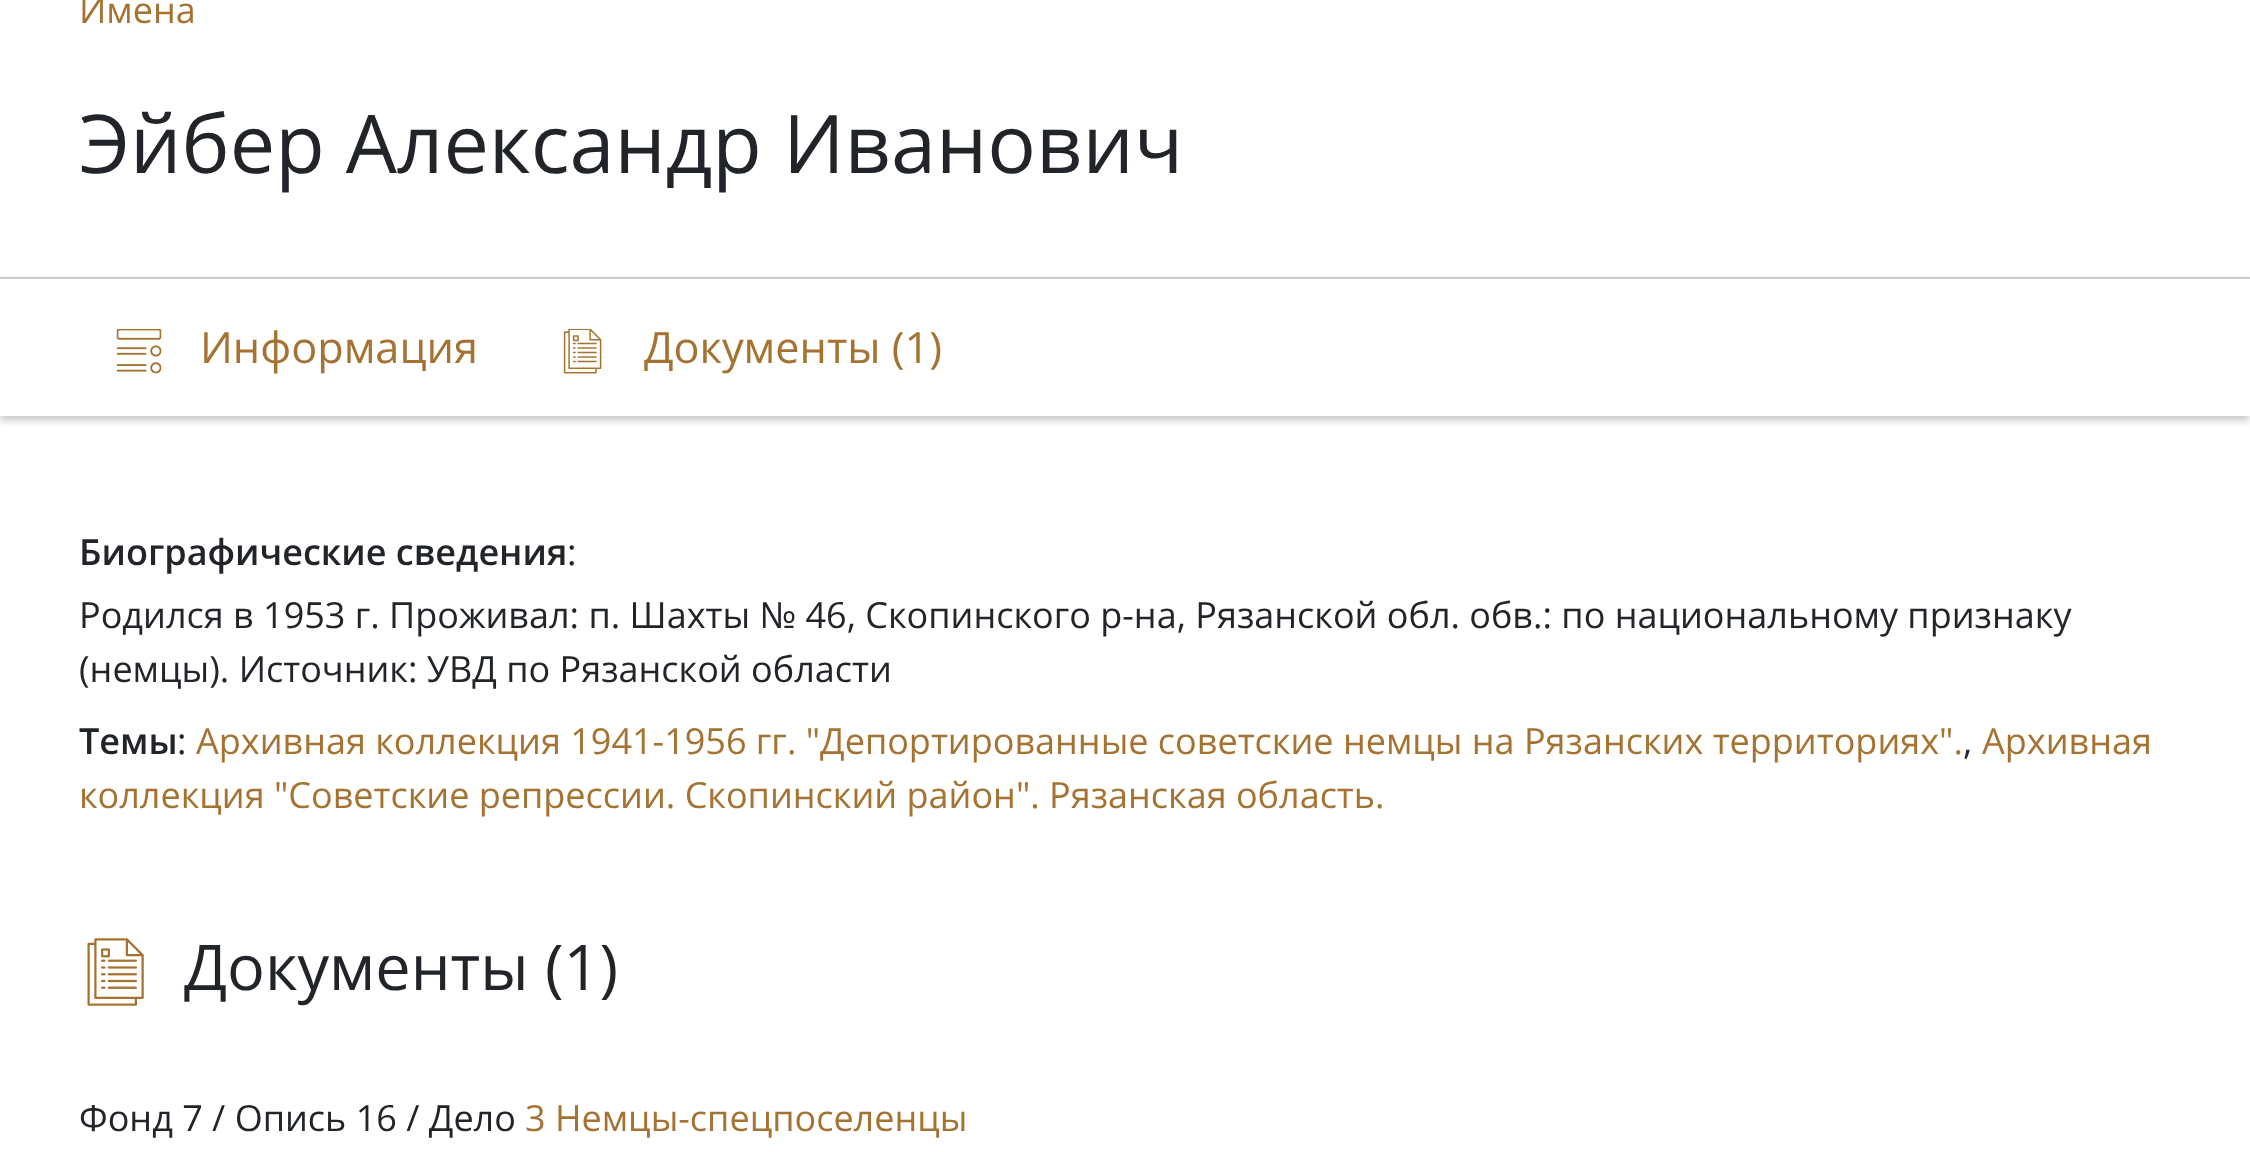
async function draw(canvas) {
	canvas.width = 2250;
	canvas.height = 1152;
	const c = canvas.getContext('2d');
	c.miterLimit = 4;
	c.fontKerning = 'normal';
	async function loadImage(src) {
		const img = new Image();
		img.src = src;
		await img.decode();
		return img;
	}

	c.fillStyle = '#fff';
	c.fillRect(0, 0, 2250, 1152);
	c.font = '36px Open Sans';
	c.fillStyle = '#a57231';
	c.fillText('Имена', 79, 23);
	c.font = '81px Open Sans';
	c.fillStyle = '#212529';
	c.fillText('Эйбер Александр Иванович', 79, 173);
	c.save();
	c.beginPath();
	c.moveTo(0, 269);
	c.lineTo(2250, 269);
	c.lineTo(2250, 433);
	c.lineTo(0, 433);
	c.closePath();
	c.moveTo(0, 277);
	c.lineTo(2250, 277);
	c.lineTo(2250, 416);
	c.lineTo(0, 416);
	c.closePath();
	c.clip('evenodd');
	c.fillStyle = '#ccc';
	c.filter = 'blur(3.5px)';
	c.beginPath();
	c.rect(0, 281, 2250, 140);
	c.fill();
	c.filter = 'none';
	c.restore();
	c.fillStyle = '#ccc';
	c.fillRect(0, 277, 2250, 2);
	c.drawImage(await loadImage('img1.png'), 116, 329, 46, 45);
	c.font = '43.25px Open Sans';
	c.fillStyle = '#a57231';
	c.fillText('Информация', 200, 363);
	c.drawImage(await loadImage('img2.png'), 563, 329, 39, 45);
	c.fillText('Документы (1)', 644, 363);
	c.font = '600 36px Open Sans';
	c.fillStyle = '#212529';
	c.fillText('Биографические сведения', 79, 565);
	c.font = '36px Open Sans';
	for (const [text, x, y] of [
		[':', 567, 565],
		['Родился в 1953 г. Проживал: п. Шахты № 46, Скопинского р-на, Рязанской обл. обв.: по национальному признаку', 79, 628],
		['(немцы). Источник: УВД по Рязанской области', 79, 682],
	]) {
		c.fillText(text, x, y);
	}
	c.font = '600 36px Open Sans';
	c.fillText('Темы', 79, 754);
	c.font = '36px Open Sans';
	c.fillText(':', 177, 754);
	c.fillStyle = '#a57231';
	c.fillText('Архивная коллекция 1941-1956 гг. "Депортированные советские немцы на Рязанских территориях".', 196, 754);
	c.fillStyle = '#212529';
	c.fillText(',', 1963, 754);
	c.fillStyle = '#a57231';
	c.fillText('Архивная', 1982, 754);
	c.fillText('коллекция "Советские репрессии. Скопинский район". Рязанская область.', 79, 808);
	c.drawImage(await loadImage('img3.png'), 87, 938, 57, 68);
	c.font = '63px Open Sans';
	c.fillStyle = '#212529';
	c.fillText('Документы (1)', 184, 990);
	c.font = '36px Open Sans';
	c.fillText('Фонд 7 / Опись 16 / Дело', 79, 1131);
	c.fillStyle = '#a57231';
	c.fillText('3 Немцы-спецпоселенцы', 525, 1131);
}

draw(document.querySelector('canvas'));
